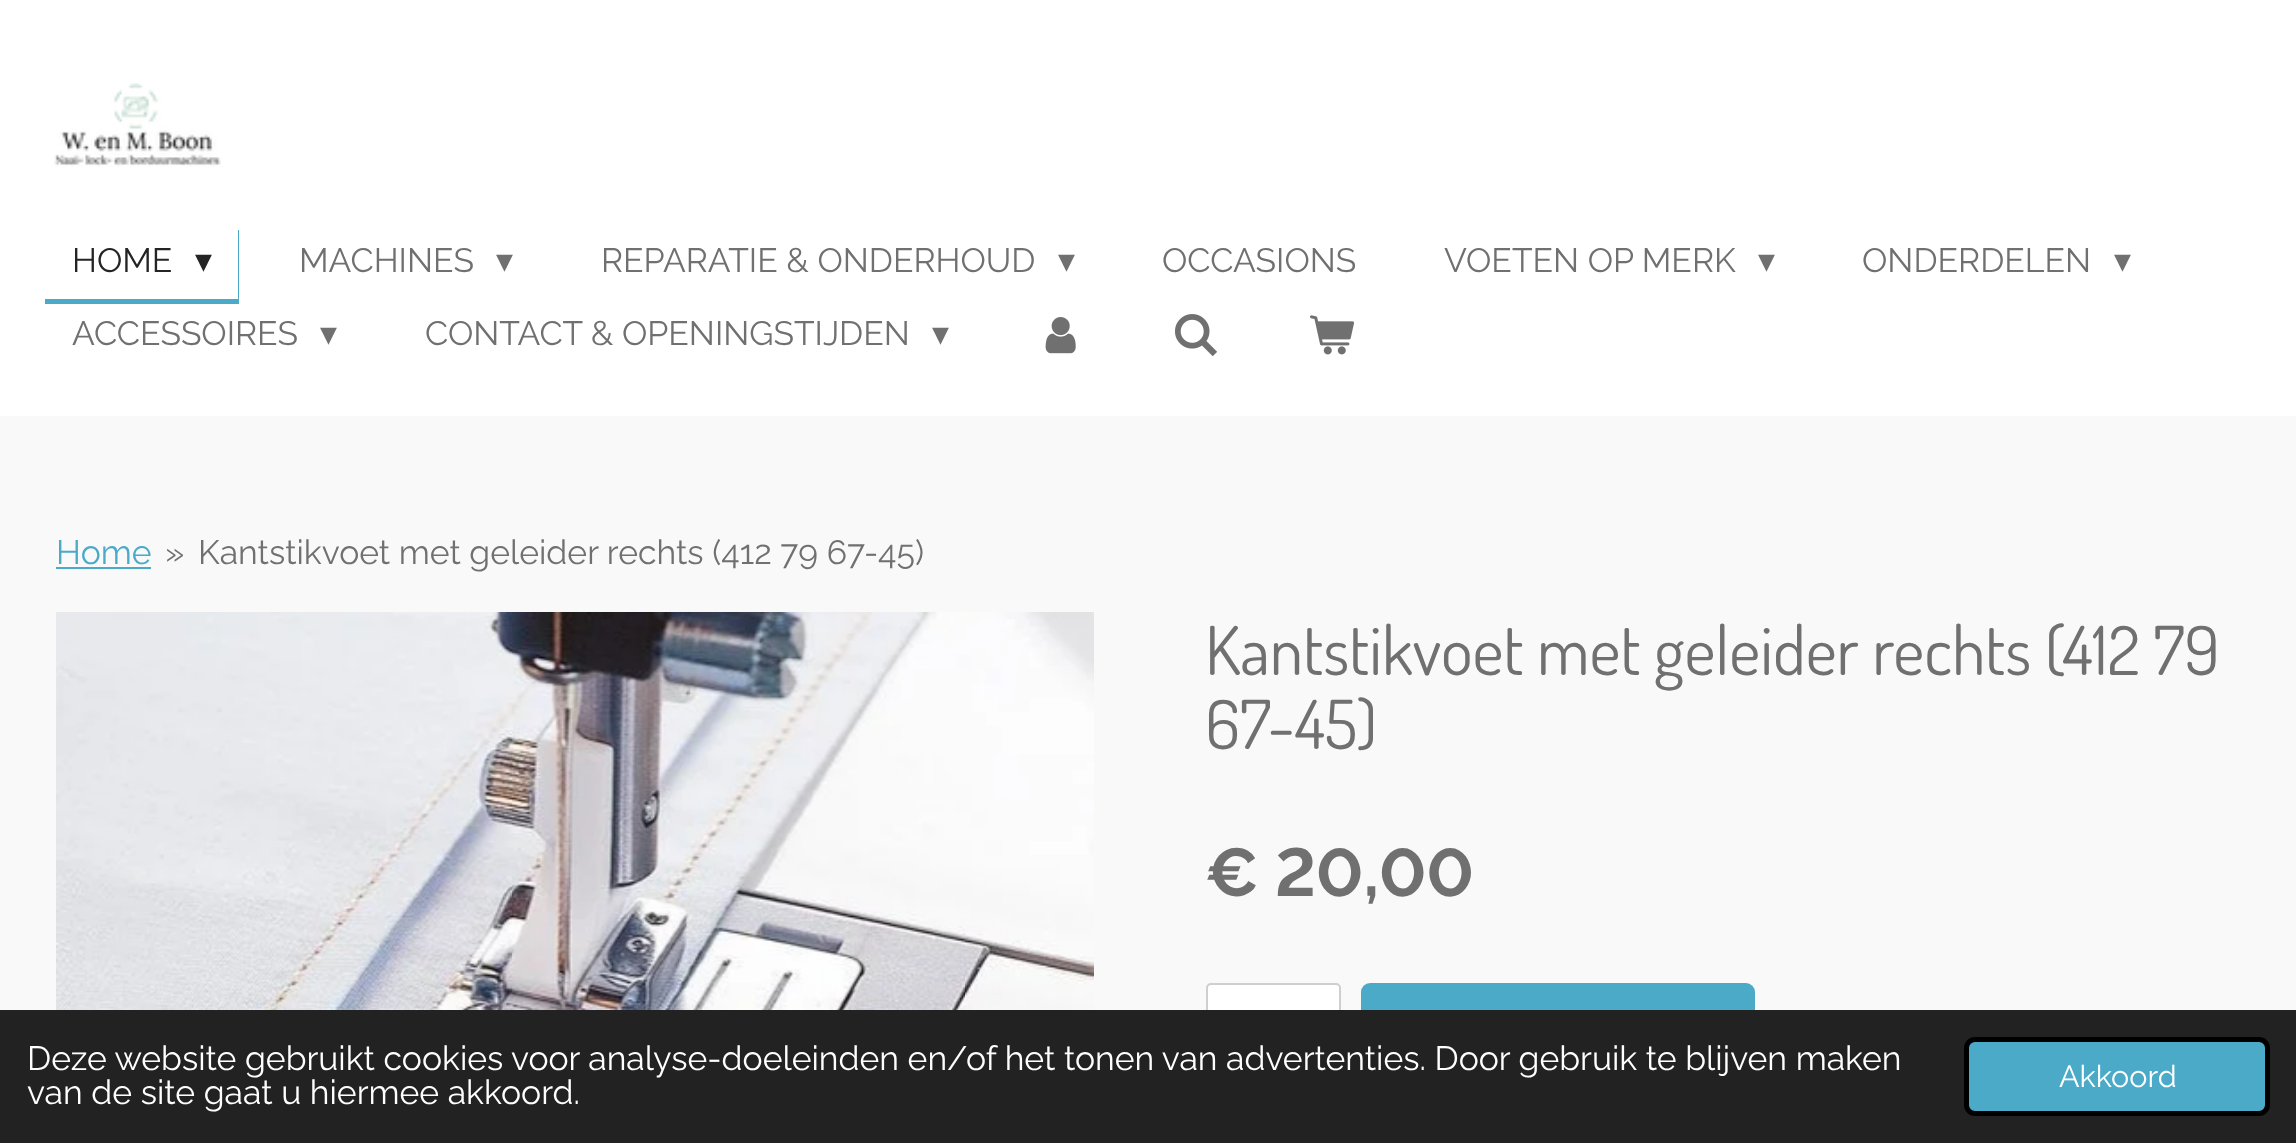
async function draw(canvas) {
	canvas.width = 2296;
	canvas.height = 1143;
	const c = canvas.getContext('2d');
	c.miterLimit = 4;
	c.fontKerning = 'normal';
	async function loadImage(src) {
		const img = new Image();
		img.src = src;
		await img.decode();
		return img;
	}

	c.fillStyle = '#fff';
	c.fillRect(0, 0, 2296, 1143);
	c.drawImage(await loadImage('img1.png'), 54, 83, 167, 84);
	c.fillStyle = '#4caac9';
	c.beginPath();
	c.moveTo(45, 299);
	c.lineTo(45, 304);
	c.lineTo(239, 304);
	c.lineTo(239, 230);
	c.lineTo(238, 230);
	c.lineTo(238, 299);
	c.closePath();
	c.fill();
	c.font = '33.75px Raleway';
	c.fillStyle = '#242424';
	c.fillText('HOME', 72, 272);
	c.font = '33.75px DejaVu Sans';
	c.fillText('▾', 195, 272);
	c.font = '33.75px Raleway';
	c.fillStyle = '#707070';
	c.fillText('MACHINES', 299, 272);
	c.font = '33.75px DejaVu Sans';
	c.fillText('▾', 496, 272);
	c.font = '33.75px Raleway';
	c.fillText('REPARATIE & ONDERHOUD', 601, 272);
	c.font = '33.75px DejaVu Sans';
	c.fillText('▾', 1058, 272);
	c.font = '33.75px Raleway';
	c.fillText('OCCASIONS', 1162, 272);
	c.fillText('VOETEN OP MERK', 1444, 272);
	c.font = '33.75px DejaVu Sans';
	c.fillText('▾', 1758, 272);
	c.font = '33.75px Raleway';
	c.fillText('ONDERDELEN', 1862, 272);
	c.font = '33.75px DejaVu Sans';
	c.fillText('▾', 2114, 272);
	c.font = '33.75px Raleway';
	c.fillText('ACCESSOIRES', 72, 345);
	c.font = '33.75px DejaVu Sans';
	c.fillText('▾', 320, 345);
	c.font = '33.75px Raleway';
	c.fillText('CONTACT & OPENINGSTIJDEN', 425, 345);
	c.font = '33.75px DejaVu Sans';
	c.fillText('▾', 932, 345);
	c.drawImage(await loadImage('img2.png'), 1045, 317, 31, 37);
	c.drawImage(await loadImage('img3.png'), 1175, 314, 42, 43);
	c.drawImage(await loadImage('img4.png'), 1310, 315, 44, 40);
	c.fillStyle = '#f9f9f9';
	c.fillRect(0, 416, 2296, 594);
	c.font = '33.75px Raleway';
	c.fillStyle = '#4caac9';
	c.fillText('Home', 56, 564);
	c.fillRect(56, 567, 95, 2);
	c.fillStyle = '#707070';
	c.fillText('»', 165, 564);
	c.fillText('Kantstikvoet met geleider rechts (412 79 67-45)', 198, 564);
	c.drawImage(await loadImage('img5.png'), 56, 612, 1038, 398);
	c.font = '67.5px Dosis';
	c.fillText('Kantstikvoet met geleider rechts (412 79', 1205, 675);
	c.fillText('67-45)', 1205, 749);
	c.font = 'bold 67.5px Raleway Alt';
	c.fillText('€ 20,00', 1205, 896);
	c.fillStyle = '#fff';
	c.beginPath();
	c.roundRect(1206, 983, 135, 111, 5);
	c.fill();
	c.beginPath();
	c.roundRect(1207, 984, 133, 109, 4);
	c.strokeStyle = '#a0a0a080';
	c.lineWidth = 2;
	c.stroke();
	c.fillStyle = '#4caac9';
	c.beginPath();
	c.roundRect(1361, 983, 394, 111, 9);
	c.fill();
	c.fillStyle = '#222';
	c.fillRect(0, 1010, 2296, 133);
	c.font = '33.75px Raleway';
	c.fillStyle = '#fff';
	c.fillText('Deze website gebruikt cookies voor analyse-doeleinden en/of het tonen van advertenties. Door gebruik te blijven maken', 27, 1070);
	c.fillText('van de site gaat u hiermee akkoord.', 27, 1104);
	c.fillStyle = '#4caac9';
	c.beginPath();
	c.roundRect(1966.5, 1039.5, 301, 74, 8.5);
	c.fill();
	c.strokeStyle = '#000';
	c.lineWidth = 5;
	c.stroke();
	c.font = '30.5px Raleway';
	c.fillStyle = '#fff';
	c.fillText('Akkoord', 2059, 1087);
}

draw(document.querySelector('canvas'));
